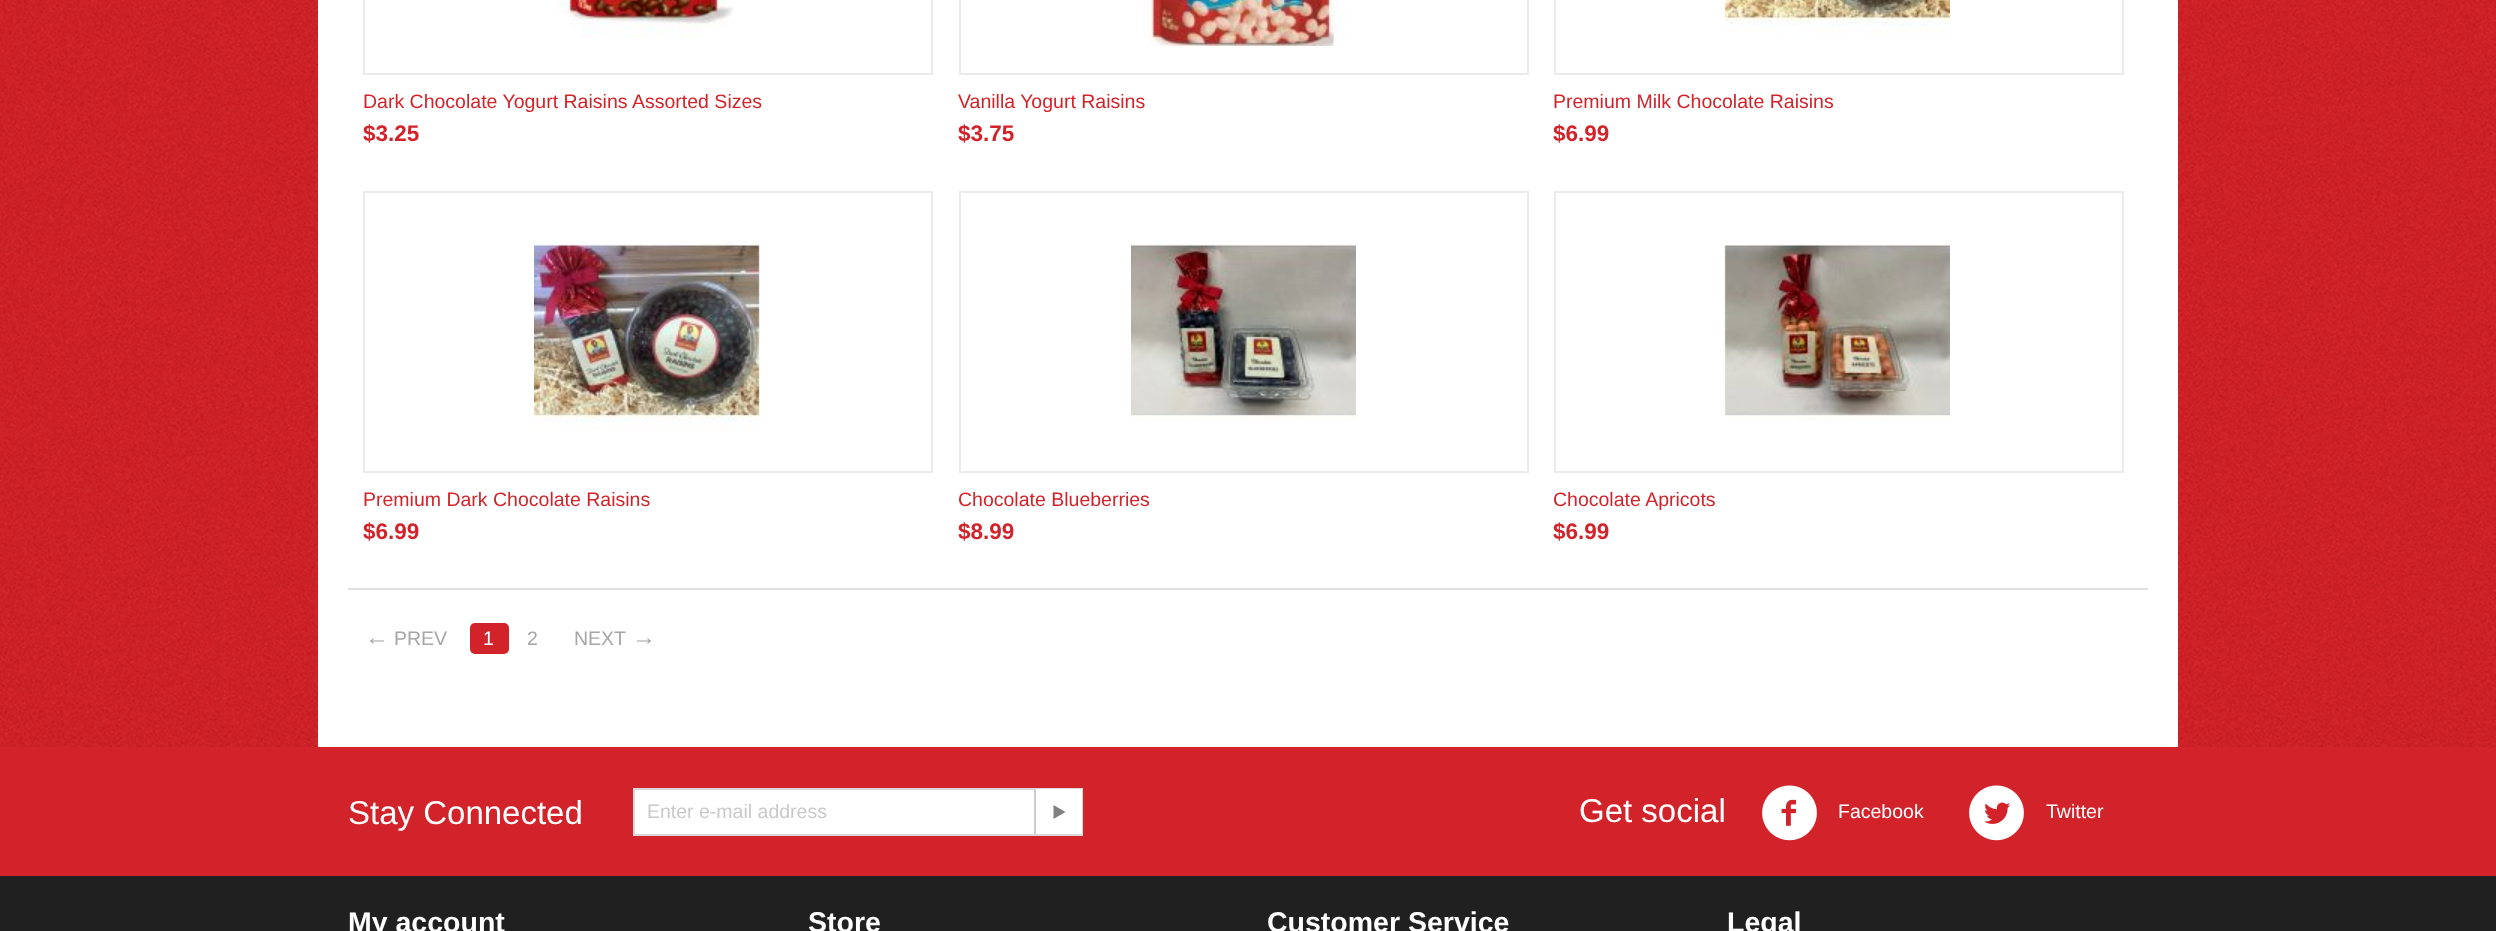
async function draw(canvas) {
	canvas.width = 2496;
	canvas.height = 931;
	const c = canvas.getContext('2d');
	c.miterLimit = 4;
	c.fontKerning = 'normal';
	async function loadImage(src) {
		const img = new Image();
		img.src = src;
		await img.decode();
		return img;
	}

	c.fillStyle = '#fff';
	c.fillRect(0, 0, 2496, 931);
	c.drawImage(await loadImage('img1.png'), 0, 0, 2496, 747);
	c.fillRect(318, 0, 1860, 747);
	c.strokeStyle = '#ebebeb';
	c.lineWidth = 2;
	c.strokeRect(364, -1, 568, 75);
	c.drawImage(await loadImage('img2.png'), 558, 0, 176, 38);
	c.font = '19.5px Liberation Sans';
	c.fillStyle = '#d2232a';
	c.fillText('Dark Chocolate Yogurt Raisins', 363, 108);
	c.fillText('Assorted Sizes', 632, 108);
	c.font = 'bold 22.5px Liberation Sans';
	c.fillText('$3.25', 363, 141);
	c.strokeRect(960, -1, 568, 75);
	c.drawImage(await loadImage('img3.png'), 1144, 0, 201, 46);
	c.font = '19.5px Liberation Sans';
	c.fillText('Vanilla Yogurt Raisins', 958, 108);
	c.font = 'bold 22.5px Liberation Sans';
	c.fillText('$3.75', 958, 141);
	c.strokeRect(1555, -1, 568, 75);
	c.drawImage(await loadImage('img4.png'), 1724, 0, 226, 36);
	c.font = '19.5px Liberation Sans';
	c.fillText('Premium Milk Chocolate Raisins', 1553, 108);
	c.font = 'bold 22.5px Liberation Sans';
	c.fillText('$6.99', 1553, 141);
	c.strokeRect(364, 192, 568, 280);
	c.drawImage(await loadImage('img5.png'), 534, 241, 226, 191);
	c.font = '19.5px Liberation Sans';
	c.fillText('Premium Dark Chocolate Raisins', 363, 506);
	c.font = 'bold 22.5px Liberation Sans';
	c.fillText('$6.99', 363, 539);
	c.strokeRect(960, 192, 568, 280);
	c.drawImage(await loadImage('img6.png'), 1131, 243, 225, 178);
	c.font = '19.5px Liberation Sans';
	c.fillText('Chocolate Blueberries', 958, 506);
	c.font = 'bold 22.5px Liberation Sans';
	c.fillText('$8.99', 958, 539);
	c.strokeRect(1555, 192, 568, 280);
	c.drawImage(await loadImage('img7.png'), 1724, 242, 226, 180);
	c.font = '19.5px Liberation Sans';
	c.fillText('Chocolate Apricots', 1553, 506);
	c.font = 'bold 22.5px Liberation Sans';
	c.fillText('$6.99', 1553, 539);
	c.fillStyle = '#dedede';
	c.fillRect(348, 588, 1800, 2);
	c.font = '24px Liberation Sans';
	c.fillStyle = '#a6a6a6';
	c.fillText('←', 365, 645);
	c.font = '19.5px Liberation Sans';
	c.fillText('PREV', 394, 645);
	c.fillStyle = '#d2232a';
	c.beginPath();
	c.roundRect(470, 623, 39, 31, 5);
	c.fill();
	c.fillStyle = '#fff';
	c.fillText('1', 483, 645);
	c.fillStyle = '#a6a6a6';
	c.fillText('2', 527, 645);
	c.fillText('NEXT', 574, 645);
	c.font = '24px Liberation Sans';
	c.fillText('→', 632, 645);
	c.fillStyle = '#202020';
	c.fillRect(0, 876, 2496, 55);
	c.fillStyle = '#d2232a';
	c.fillRect(0, 747, 2496, 129);
	c.font = '33px Liberation Sans';
	c.fillStyle = '#fff';
	c.fillText('Stay Connected', 348, 824);
	c.fillRect(635, 790, 399, 44);
	c.strokeStyle = '#d9d9d9';
	c.strokeRect(634, 789, 448, 46);
	c.font = '19.5px Liberation Sans';
	c.fillStyle = '#c9c9c9';
	c.fillText('Enter e-mail address', 647, 818);
	c.fillStyle = '#fff';
	c.fillRect(1036, 789, 46, 45);
	c.fillStyle = '#cdcdcd';
	c.fillRect(1034, 789, 2, 45);
	c.fillStyle = '#808080';
	c.beginPath();
	c.moveTo(1053.5, 805);
	c.lineTo(1065.5, 812);
	c.lineTo(1053.5, 819);
	c.closePath();
	c.fill();
	c.font = '33px Liberation Sans';
	c.fillStyle = '#fff';
	c.fillText('Get social', 1579, 822);
	c.drawImage(await loadImage('img8.png'), 1762, 785, 55, 56);
	c.font = '19.5px Liberation Sans';
	c.fillText('Facebook', 1838, 818);
	c.drawImage(await loadImage('img9.png'), 1969, 785, 55, 56);
	c.fillText('Twitter', 2046, 818);
	c.font = 'bold 28.5px Liberation Sans';
	for (const [text, x, y] of [
		['My account', 348, 932],
		['Store', 808, 932],
		['Customer Service', 1267, 932],
		['Legal', 1727, 932],
	]) {
		c.fillText(text, x, y);
	}
}

draw(document.querySelector('canvas'));
